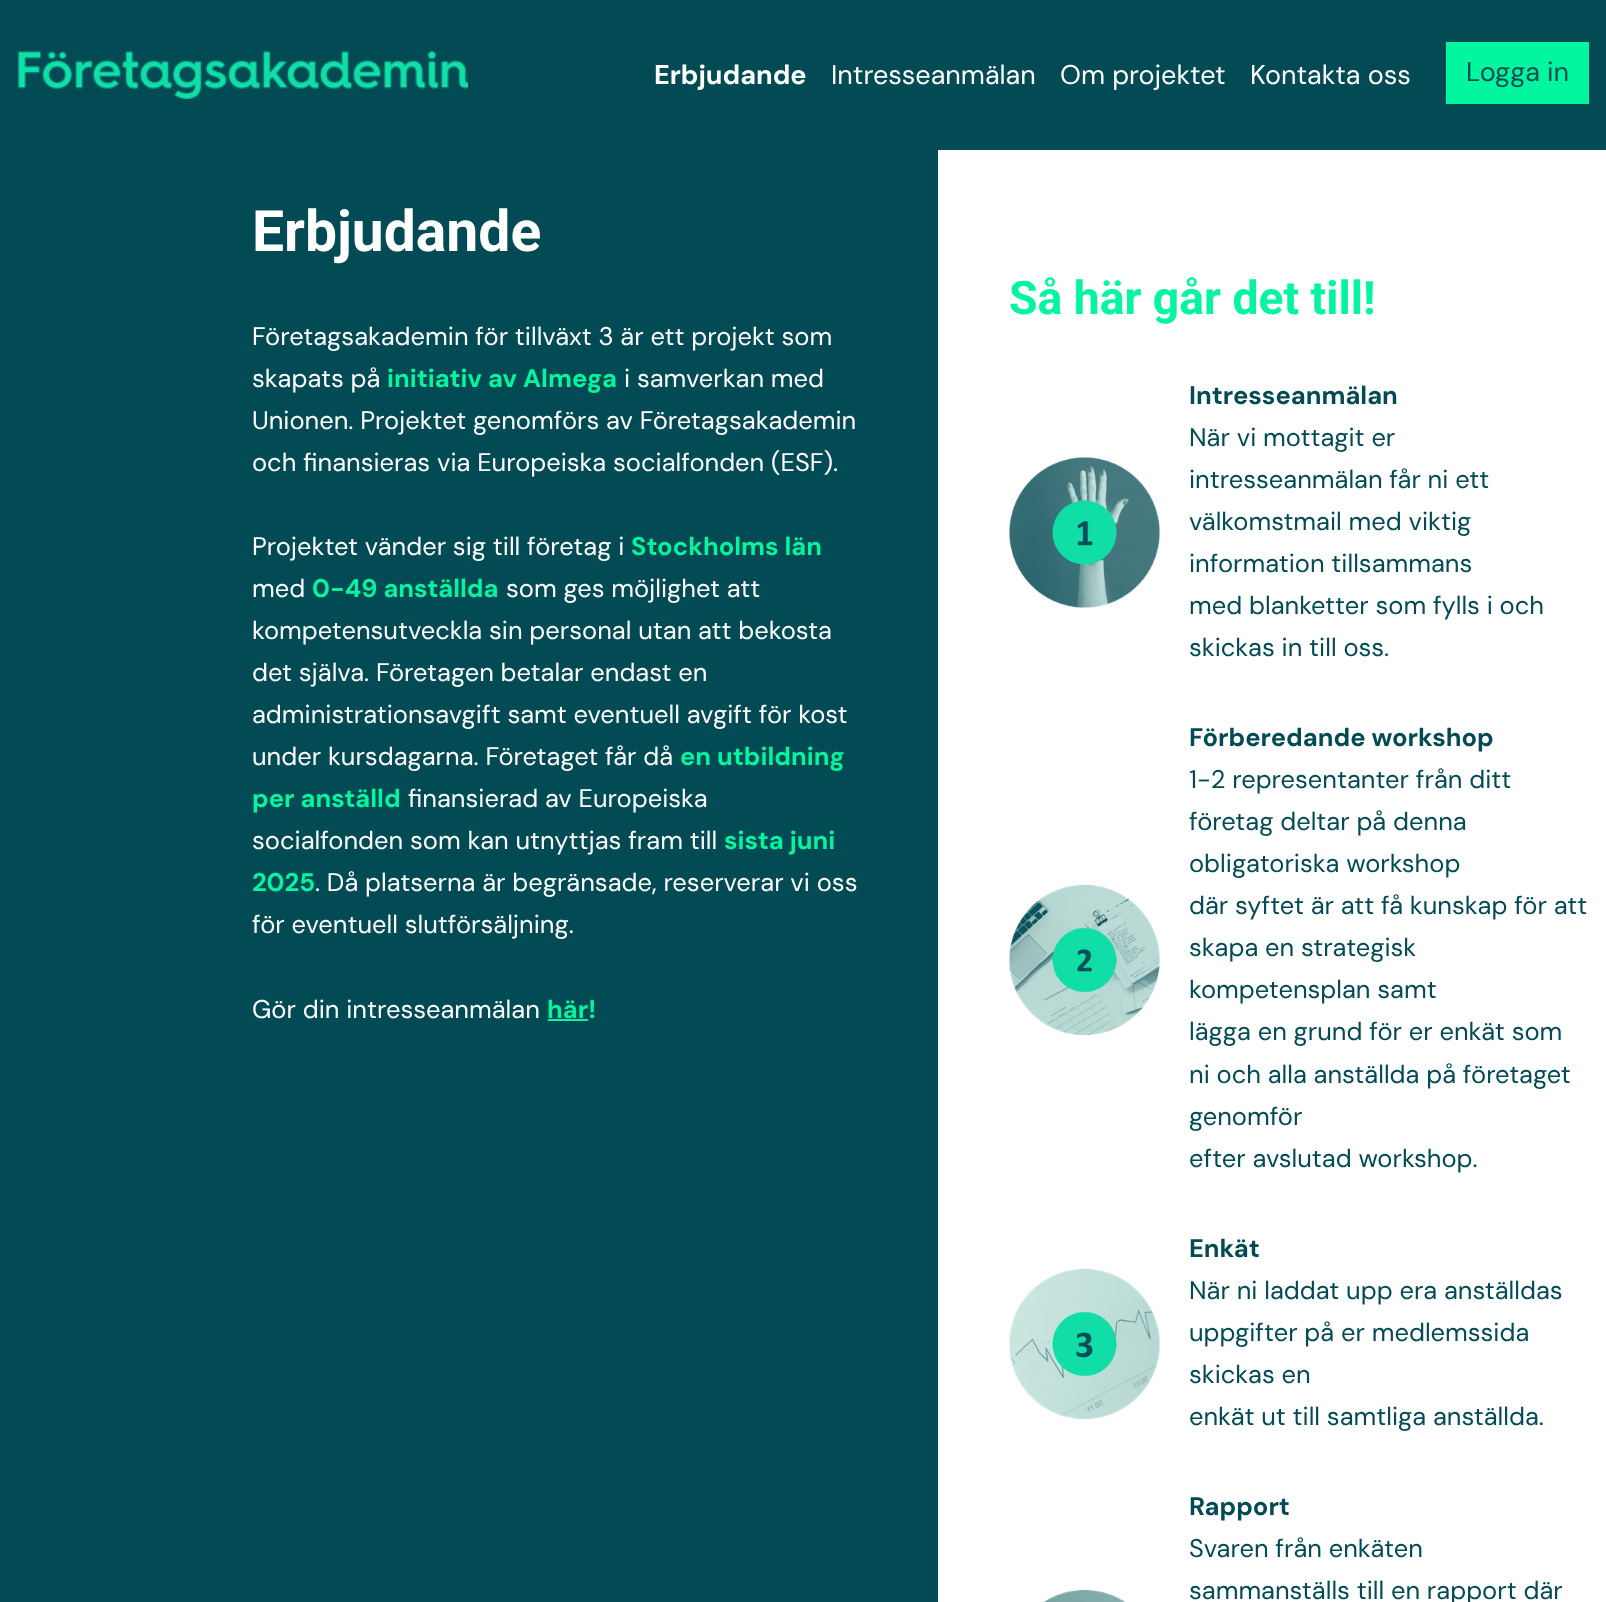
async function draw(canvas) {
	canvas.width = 1606;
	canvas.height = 1602;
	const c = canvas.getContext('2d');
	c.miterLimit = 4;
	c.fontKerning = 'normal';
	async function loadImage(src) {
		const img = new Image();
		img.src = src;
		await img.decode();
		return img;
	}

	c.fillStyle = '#024b54';
	c.fillRect(0, 0, 1606, 1602);
	c.drawImage(await loadImage('img1.png'), 18, 50, 450, 49);
	c.font = 'bold 27px DM Sans';
	c.fillStyle = '#fff';
	c.fillText('Erbjudande', 654, 84);
	c.font = '27px DM Sans';
	for (const [text, x, y] of [
		['Intresseanmälan', 831, 84],
		['Om projektet', 1060, 84],
		['Kontakta oss', 1250, 84],
	]) {
		c.fillText(text, x, y);
	}
	c.fillStyle = '#04f59f';
	c.fillRect(1446, 42, 143, 62);
	c.fillStyle = '#024b54';
	c.fillText('Logga in', 1466, 81);
	c.font = 'bold 57px Roboto';
	c.fillStyle = '#fff';
	c.fillText('Erbjudande', 252, 251);
	c.font = '25.5px DM Sans';
	c.fillText('Företagsakademin för tillväxt 3 är ett projekt som', 252, 345);
	c.fillText('skapats på', 252, 387);
	c.font = 'bold 25.5px DM Sans';
	c.fillStyle = '#04f59f';
	c.fillText('initiativ av Almega', 387, 387);
	c.font = '25.5px DM Sans';
	c.fillStyle = '#fff';
	for (const [text, x, y] of [
		['i samverkan med', 624, 387],
		['Unionen. Projektet genomförs av Företagsakademin', 252, 429],
		['och finansieras via Europeiska socialfonden (ESF).', 252, 471],
		['Projektet vänder sig till företag i', 252, 555],
	]) {
		c.fillText(text, x, y);
	}
	c.font = 'bold 25.5px DM Sans';
	c.fillStyle = '#04f59f';
	c.fillText('Stockholms län', 631, 555);
	c.font = '25.5px DM Sans';
	c.fillStyle = '#fff';
	c.fillText('med', 252, 597);
	c.font = 'bold 25.5px DM Sans';
	c.fillStyle = '#04f59f';
	c.fillText('0-49 anställda', 312, 597);
	c.font = '25.5px DM Sans';
	c.fillStyle = '#fff';
	for (const [text, x, y] of [
		['som ges möjlighet att', 506, 597],
		['kompetensutveckla sin personal utan att bekosta', 252, 639],
		['det själva. Företagen betalar endast en', 252, 681],
		['administrationsavgift samt eventuell avgift för kost', 252, 723],
		['under kursdagarna. Företaget får då', 252, 765],
	]) {
		c.fillText(text, x, y);
	}
	c.font = 'bold 25.5px DM Sans';
	c.fillStyle = '#04f59f';
	c.fillText('en utbildning', 680, 765);
	c.fillText('per anställd', 252, 807);
	c.font = '25.5px DM Sans';
	c.fillStyle = '#fff';
	c.fillText('finansierad av Europeiska', 408, 807);
	c.fillText('socialfonden som kan utnyttjas fram till', 252, 849);
	c.font = 'bold 25.5px DM Sans';
	c.fillStyle = '#04f59f';
	c.fillText('sista juni', 724, 849);
	c.fillText('2025', 252, 891);
	c.font = '25.5px DM Sans';
	c.fillStyle = '#fff';
	for (const [text, x, y] of [
		['. Då platserna är begränsade, reserverar vi oss', 315, 891],
		['för eventuell slutförsäljning.', 252, 933],
		['Gör din intresseanmälan', 252, 1018],
	]) {
		c.fillText(text, x, y);
	}
	c.font = 'bold 25.5px DM Sans';
	c.fillStyle = '#04f59f';
	c.fillText('här!', 547, 1018);
	c.fillRect(548, 1019, 40, 2);
	c.fillStyle = '#fff';
	c.fillRect(938, 150, 668, 1452);
	c.font = 'bold 46.25px Roboto';
	c.fillStyle = '#04f59f';
	c.fillText('Så här går det till!', 1009, 314);
	c.drawImage(await loadImage('img2.png'), 1009, 457, 151, 151);
	c.font = 'bold 25.5px DM Sans';
	c.fillStyle = '#024b54';
	c.fillText('Intresseanmälan', 1189, 404);
	c.font = '25.5px DM Sans';
	for (const [text, x, y] of [
		['När vi mottagit er', 1189, 446],
		['intresseanmälan får ni ett', 1189, 488],
		['välkomstmail med viktig', 1189, 530],
		['information tillsammans', 1189, 572],
		['med blanketter som fylls i och', 1189, 614],
		['skickas in till oss.', 1189, 656],
	]) {
		c.fillText(text, x, y);
	}
	c.drawImage(await loadImage('img3.png'), 1009, 885, 151, 150);
	c.font = 'bold 25.5px DM Sans';
	c.fillText('Förberedande workshop', 1189, 746);
	c.font = '25.5px DM Sans';
	for (const [text, x, y] of [
		['1-2 representanter från ditt', 1189, 788],
		['företag deltar på denna', 1189, 830],
		['obligatoriska workshop', 1189, 872],
		['där syftet är att få kunskap för att', 1189, 914],
		['skapa en strategisk', 1189, 956],
		['kompetensplan samt', 1189, 998],
		['lägga en grund för er enkät som', 1189, 1040],
		['ni och alla anställda på företaget', 1189, 1083],
		['genomför', 1189, 1125],
		['efter avslutad workshop.', 1189, 1167],
	]) {
		c.fillText(text, x, y);
	}
	c.drawImage(await loadImage('img4.png'), 1009, 1269, 151, 150);
	c.font = 'bold 25.5px DM Sans';
	c.fillText('Enkät', 1189, 1257);
	c.font = '25.5px DM Sans';
	for (const [text, x, y] of [
		['När ni laddat upp era anställdas', 1189, 1299],
		['uppgifter på er medlemssida', 1189, 1341],
		['skickas en', 1189, 1383],
		['enkät ut till samtliga anställda.', 1189, 1425],
	]) {
		c.fillText(text, x, y);
	}
	c.drawImage(await loadImage('img5.png'), 1043, 1590, 82, 12);
	c.font = 'bold 25.5px DM Sans';
	c.fillText('Rapport', 1189, 1515);
	c.font = '25.5px DM Sans';
	c.fillText('Svaren från enkäten', 1189, 1557);
	c.fillText('sammanställs till en rapport där', 1189, 1599);
}

draw(document.querySelector('canvas'));
